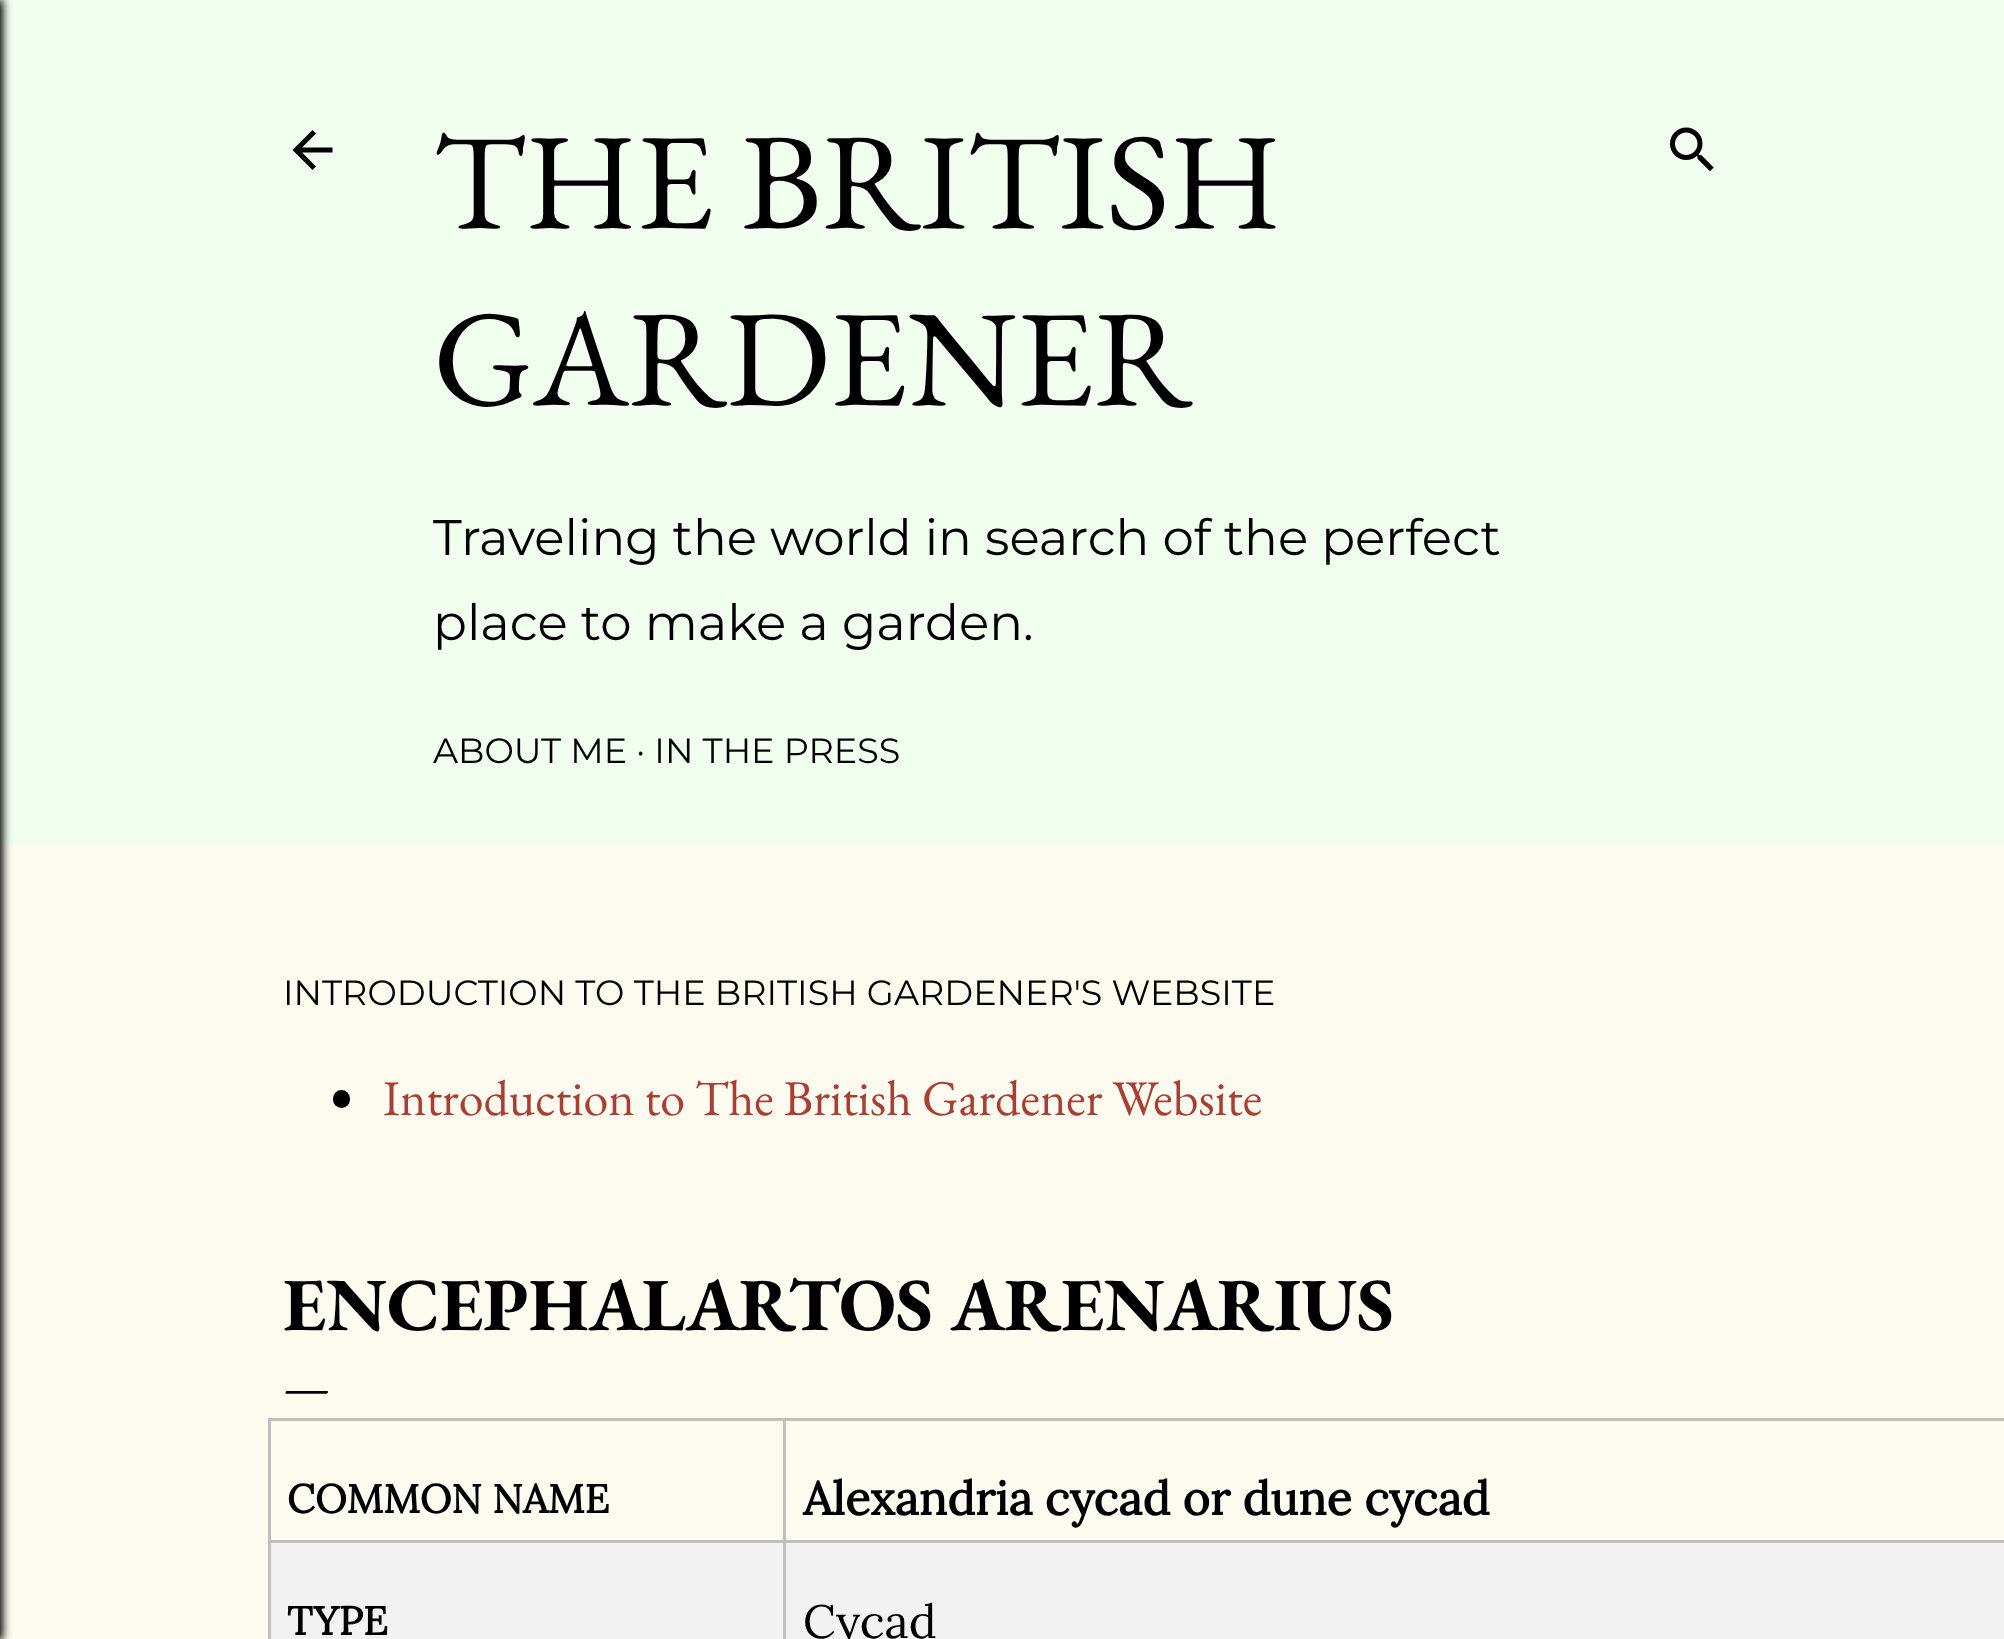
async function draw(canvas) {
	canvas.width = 2004;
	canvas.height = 1639;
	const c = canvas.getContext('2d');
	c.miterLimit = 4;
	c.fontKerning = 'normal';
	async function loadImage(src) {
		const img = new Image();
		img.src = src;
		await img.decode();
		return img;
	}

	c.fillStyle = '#fdfaf0';
	c.fillRect(0, 0, 2004, 1639);
	c.fillStyle = '#f1fdef';
	c.fillRect(0, 0, 2004, 845);
	c.fillStyle = '#000';
	c.filter = 'blur(4px)';
	c.beginPath();
	c.rect(-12, 0, 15, 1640);
	c.fill();
	c.filter = 'none';
	c.drawImage(await loadImage('img1.png'), 292, 130, 41, 40);
	c.font = '137.5px EB Garamond';
	c.fillText('THE BRITISH', 433, 228);
	c.fillText('GARDENER', 433, 405);
	c.save();
	c.beginPath();
	c.rect(433, 90, 1140, 695);
	c.clip();
	c.font = '100 50px Montserrat';
	c.fillText('Traveling the world in search of the perfect', 433, 555);
	c.restore();
	c.font = '100 50px Montserrat';
	c.fillText('place to make a garden.', 433, 640);
	c.font = '100 35px Montserrat';
	c.fillText('ABOUT ME · IN THE PRESS', 433, 763);
	c.drawImage(await loadImage('img2.png'), 1670, 127, 44, 45);
	c.fillText('INTRODUCTION TO THE BRITISH GARDENER\'S WEBSITE', 283, 1005);
	c.beginPath();
	c.roundRect(333, 1090, 17, 18, 8.5);
	c.fill();
	c.font = '50px EB Garamond';
	c.fillStyle = '#a93e33';
	c.fillText('Introduction to The British Gardener Website', 383, 1115);
	c.font = 'bold 75px EB Garamond';
	c.fillStyle = '#000';
	c.fillText('ENCEPHALARTOS ARENARIUS', 283, 1330);
	c.font = '50px EB Garamond';
	c.fillText('—', 283, 1403);
	for (const [x, y, w, h, color] of [
		[783, 1418, 1221, 3, '#bfbfbf'],
		[268, 1540, 517, 3, '#bfbfbf'],
		[783, 1540, 3, 99, '#bfbfbf'],
		[783, 1540, 1221, 3, '#bfbfbf'],
		[783, 1418, 3, 125, '#bfbfbf'],
		[268, 1418, 517, 3, '#bfbfbf'],
		[268, 1540, 3, 99, '#bfbfbf'],
		[268, 1418, 3, 125, '#bfbfbf'],
	]) {
		c.fillStyle = color;
		c.fillRect(x, y, w, h);
	}
	c.font = 'bold 40px Lora';
	c.fillStyle = '#000';
	c.fillText('COMMON NAME', 287, 1513);
	c.font = 'bold 46.7px Lora';
	c.fillText('Alexandria cycad or dune cycad', 803, 1515);
	c.fillStyle = '#f2f2f2';
	c.fillRect(271, 1543, 512, 96);
	c.font = 'bold 40px Lora';
	c.fillStyle = '#000';
	c.fillText('TYPE', 287, 1635);
	c.fillStyle = '#f2f2f2';
	c.fillRect(786, 1543, 1218, 96);
	c.font = '46.7px Lora';
	c.fillStyle = '#000';
	c.fillText('Cycad', 803, 1638);
}

draw(document.querySelector('canvas'));
